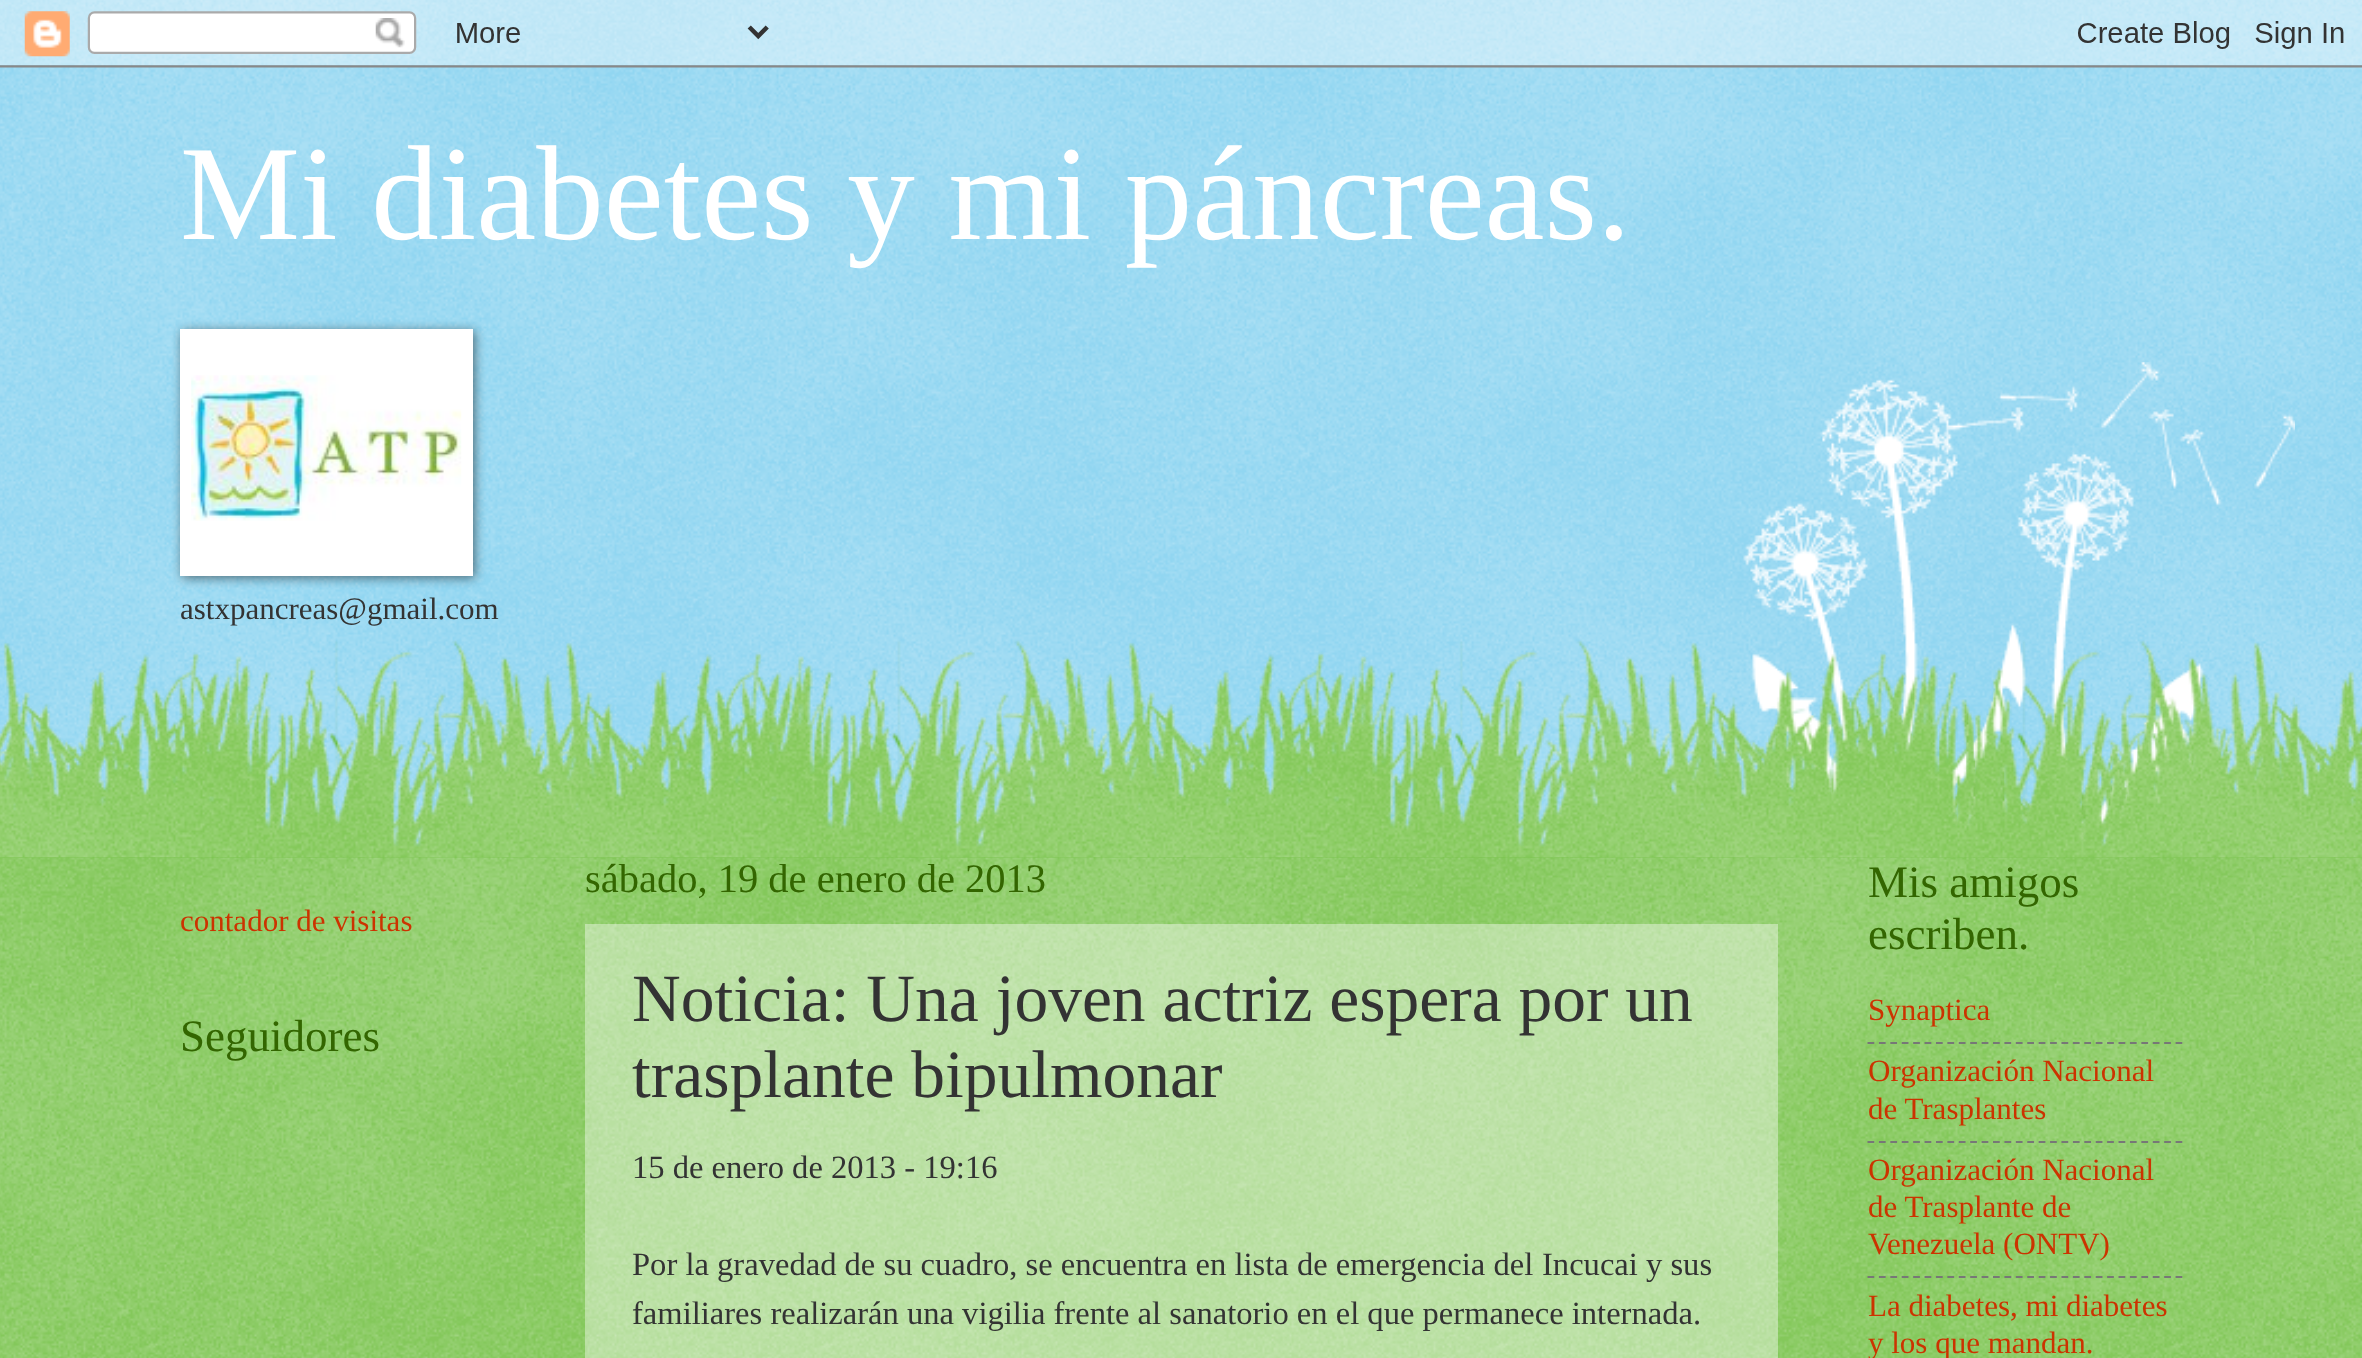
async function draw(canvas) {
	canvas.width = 2362;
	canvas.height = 1358;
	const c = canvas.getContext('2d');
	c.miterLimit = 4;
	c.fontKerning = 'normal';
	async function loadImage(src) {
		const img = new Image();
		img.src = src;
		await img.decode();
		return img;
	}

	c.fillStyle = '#7ce';
	c.fillRect(0, 0, 2362, 1358);
	c.drawImage(await loadImage('img1.png'), 0, 0, 2362, 847);
	c.drawImage(await loadImage('img2.png'), 0, 0, 2362, 68);
	c.font = '135px Liberation Serif';
	c.fillStyle = '#fff';
	c.fillText('Mi diabetes y mi páncreas.', 180, 239);
	c.fillStyle = '#00000080';
	c.filter = 'blur(5.5px)';
	c.beginPath();
	c.rect(182, 331, 293, 247);
	c.fill();
	c.filter = 'none';
	c.fillStyle = '#fff';
	c.fillRect(180, 329, 293, 247);
	c.drawImage(await loadImage('img3.png'), 191, 375, 271, 146);
	c.font = '31px Liberation Serif';
	c.fillStyle = '#333';
	c.fillText('astxpancreas@gmail.com', 180, 619);
	c.fillStyle = '#6b3';
	c.fillRect(0, 857, 2362, 501);
	c.drawImage(await loadImage('img4.png'), 0, 857, 2362, 501);
	c.drawImage(await loadImage('img5.png'), 1732, 362, 563, 496);
	c.drawImage(await loadImage('img6.png'), 0, 640, 2362, 218);
	c.fillStyle = '#c30';
	c.fillText('contador de visitas', 180, 931);
	c.font = '45px Liberation Serif';
	c.fillStyle = '#360';
	c.fillText('Seguidores', 180, 1051);
	c.font = '40.5px Liberation Serif';
	c.fillText('sábado, 19 de enero de 2013', 585, 892);
	c.fillStyle = '#ffffff66';
	c.fillRect(585, 924, 1193, 434);
	c.font = '67.5px Liberation Serif';
	c.fillStyle = '#333';
	c.fillText('Noticia: Una joven actriz espera por un', 632, 1021);
	c.fillText('trasplante bipulmonar', 632, 1097);
	c.font = '32.6px Liberation Serif';
	for (const [text, x, y] of [
		['15 de enero de 2013 - 19:16', 632, 1178],
		['Por la gravedad de su cuadro, se encuentra en lista de emergencia del', 632, 1275],
		['Incucai y sus', 1542, 1275],
		['familiares realizarán una vigilia frente al sanatorio en el que permanece internada.', 632, 1324],
	]) {
		c.fillText(text, x, y);
	}
	c.font = '45px Liberation Serif';
	c.fillStyle = '#360';
	c.fillText('Mis amigos', 1868, 897);
	c.fillText('escriben.', 1868, 949);
	c.font = '31px Liberation Serif';
	c.fillStyle = '#c30';
	c.fillText('Synaptica', 1868, 1020);
	c.beginPath();
	c.moveTo(1867.5, 1043);
	c.lineTo(2182.5, 1043);
	c.strokeStyle = '#777';
	c.lineWidth = 2.2;
	c.setLineDash([6.75, 4.66]);
	c.stroke();
	c.fillText('Organización Nacional', 1868, 1081);
	c.fillText('de Trasplantes', 1868, 1119);
	c.beginPath();
	c.moveTo(1867.5, 1142);
	c.lineTo(2182.5, 1142);
	c.stroke();
	for (const [text, x, y] of [
		['Organización Nacional', 1868, 1180],
		['de Trasplante de', 1868, 1217],
		['Venezuela (ONTV)', 1868, 1254],
	]) {
		c.fillText(text, x, y);
	}
	c.beginPath();
	c.moveTo(1867.5, 1277);
	c.lineTo(2182.5, 1277);
	c.stroke();
	c.fillText('La diabetes, mi diabetes', 1868, 1316);
	c.fillText('y los que mandan.', 1868, 1353);
}

draw(document.querySelector('canvas'));
